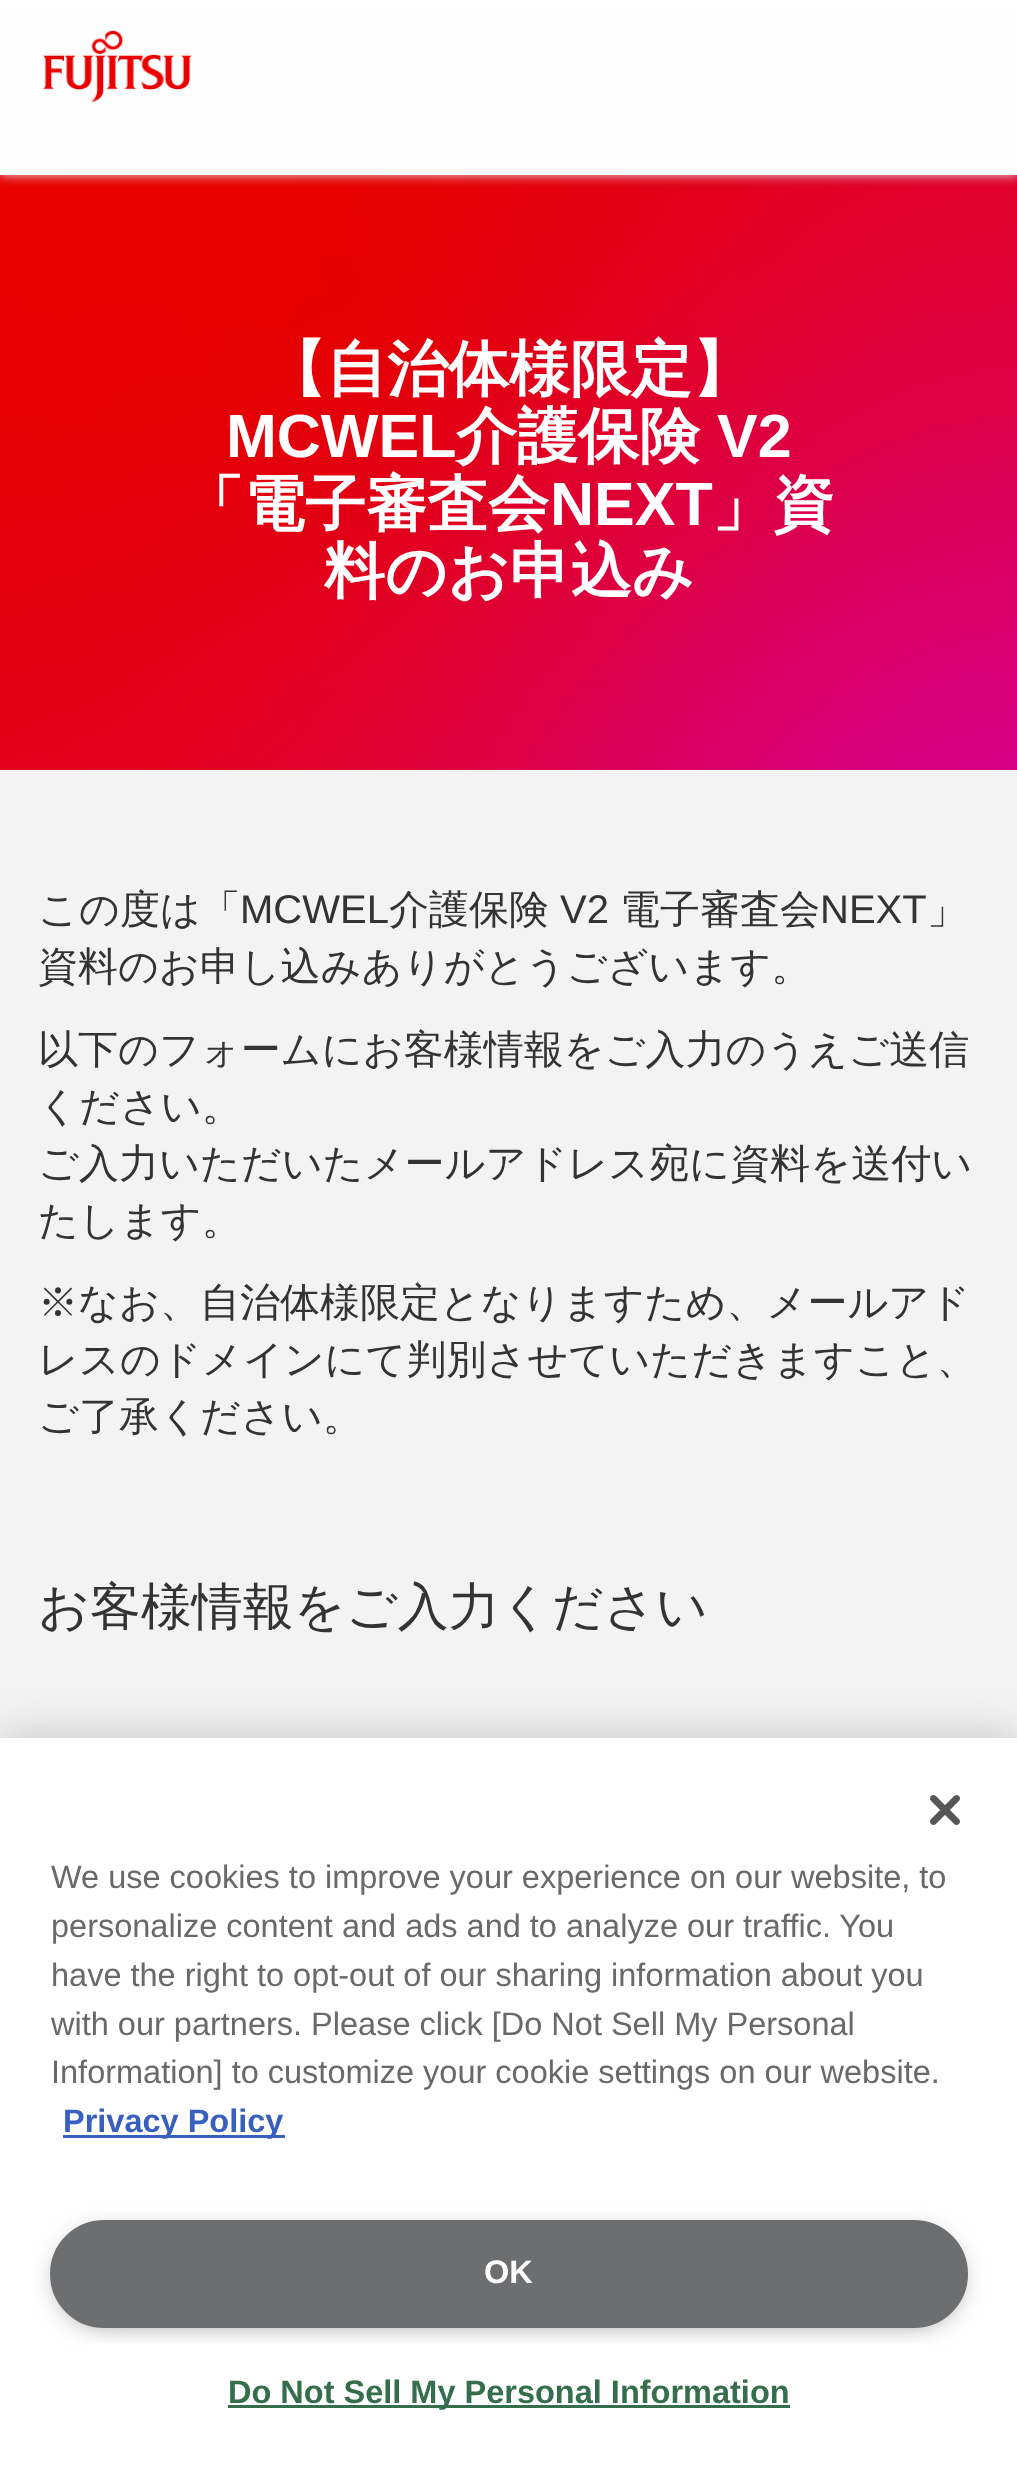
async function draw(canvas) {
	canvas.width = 1017;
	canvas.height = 2470;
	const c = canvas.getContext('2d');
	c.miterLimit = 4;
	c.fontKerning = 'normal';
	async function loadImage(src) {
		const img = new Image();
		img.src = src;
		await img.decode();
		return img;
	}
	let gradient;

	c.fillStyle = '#f3f3f3';
	c.fillRect(0, 0, 1017, 2470);
	c.drawImage(await loadImage('img2.png'), 0, 175, 1017, 595);
	c.fillStyle = '#ddd';
	c.filter = 'blur(6px)';
	c.beginPath();
	c.rect(0, 0, 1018, 175);
	c.fill();
	c.filter = 'none';
	gradient = c.createLinearGradient(509, 0, 509, 175);
	gradient.addColorStop(0, '#fff');
	gradient.addColorStop(1, '#fcfcfc');
	c.fillStyle = gradient;
	c.fillRect(0, 0, 1017, 175);
	c.drawImage(await loadImage('img1.png'), 42, 30, 151, 73);
	c.font = 'bold 61px WenQuanYi Zen Hei';
	c.fillStyle = '#fff';
	c.fillText('【自治体様限定】', 265, 390);
	c.font = 'bold 61px Liberation Sans';
	c.fillText('MCWEL', 226, 457);
	c.font = 'bold 61px WenQuanYi Zen Hei';
	c.fillText('介護保険', 456, 457);
	c.font = 'bold 61px Liberation Sans';
	c.fillText('V2', 717, 457);
	c.font = 'bold 61px WenQuanYi Zen Hei';
	c.fillText('「電子審査会', 183, 525);
	c.font = 'bold 61px Liberation Sans';
	c.fillText('NEXT', 550, 525);
	c.font = 'bold 61px WenQuanYi Zen Hei';
	c.fillText('」資', 712, 525);
	c.fillText('料のお申込み', 324, 592);
	c.font = '500 40px WenQuanYi Zen Hei';
	c.fillStyle = '#333';
	c.fillText('この度は「', 38, 923);
	c.font = '40px Liberation Sans';
	c.fillText('MCWEL', 240, 923);
	c.font = '500 40px WenQuanYi Zen Hei';
	c.fillText('介護保険', 389, 923);
	c.font = '40px Liberation Sans';
	c.fillText('V2', 560, 923);
	c.font = '500 40px WenQuanYi Zen Hei';
	c.fillText('電子審査会', 620, 923);
	c.font = '40px Liberation Sans';
	c.fillText('NEXT', 820, 923);
	c.font = '500 40px WenQuanYi Zen Hei';
	for (const [text, x, y] of [
		['」', 927, 923],
		['資料のお申し込みありがとうございます。', 38, 980],
		['以下のフォームにお客様情報をご入力のうえご送信', 38, 1063],
		['ください。', 38, 1120],
		['ご入力いただいたメールアドレス宛に資料を送付い', 38, 1177],
		['たします。', 38, 1234],
		['※なお、自治体様限定となりますため、メールアド', 38, 1316],
		['レスのドメインにて判別させていただきますこと、', 38, 1373],
		['ご了承ください。', 38, 1430],
	]) {
		c.fillText(text, x, y);
	}
	c.font = '500 50.9px WenQuanYi Zen Hei';
	c.fillText('お客様情報をご入力ください', 38, 1624);
	c.fillStyle = '#00000033';
	c.filter = 'blur(22.5px)';
	c.beginPath();
	c.rect(0, 1738, 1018, 732);
	c.fill();
	c.filter = 'none';
	c.fillStyle = '#fff';
	c.fillRect(0, 1738, 1017, 732);
	c.drawImage(await loadImage('img3.png'), 930, 1795, 30, 30);
	c.font = '32.5px Liberation Sans';
	c.fillStyle = '#696969';
	for (const [text, x, y] of [
		['We use cookies to improve your experience on our website, to', 51, 1888],
		['personalize content and ads and to analyze our traffic. You', 51, 1937],
		['have the right to opt-out of our sharing information about you', 51, 1986],
		['with our partners. Please click [Do Not Sell My Personal', 51, 2035],
		['Information] to customize your cookie settings on our website.', 51, 2083],
	]) {
		c.fillText(text, x, y);
	}
	c.fillStyle = '#3860be';
	c.fillRect(63, 2135, 222, 3);
	c.font = 'bold 32.5px Liberation Sans';
	c.fillText('Privacy Policy', 63, 2132);
	c.fillStyle = '#999';
	c.filter = 'blur(12.5px)';
	c.beginPath();
	c.roundRect(58, 2233, 902, 92, 46);
	c.fill();
	c.filter = 'none';
	c.fillStyle = '#6d6e70';
	c.beginPath();
	c.roundRect(51.5, 2221.5, 915, 105, 52.5);
	c.fill();
	c.strokeStyle = '#6d6e70';
	c.lineWidth = 3;
	c.stroke();
	c.fillStyle = '#fff';
	c.fillText('OK', 484, 2283);
	c.beginPath();
	c.roundRect(50, 2343, 918, 102, 51);
	c.fill();
	c.fillStyle = '#346e4a';
	c.fillRect(228, 2405, 562, 3);
	c.fillText('Do Not Sell My Personal Information', 228, 2403);
}

draw(document.querySelector('canvas'));
